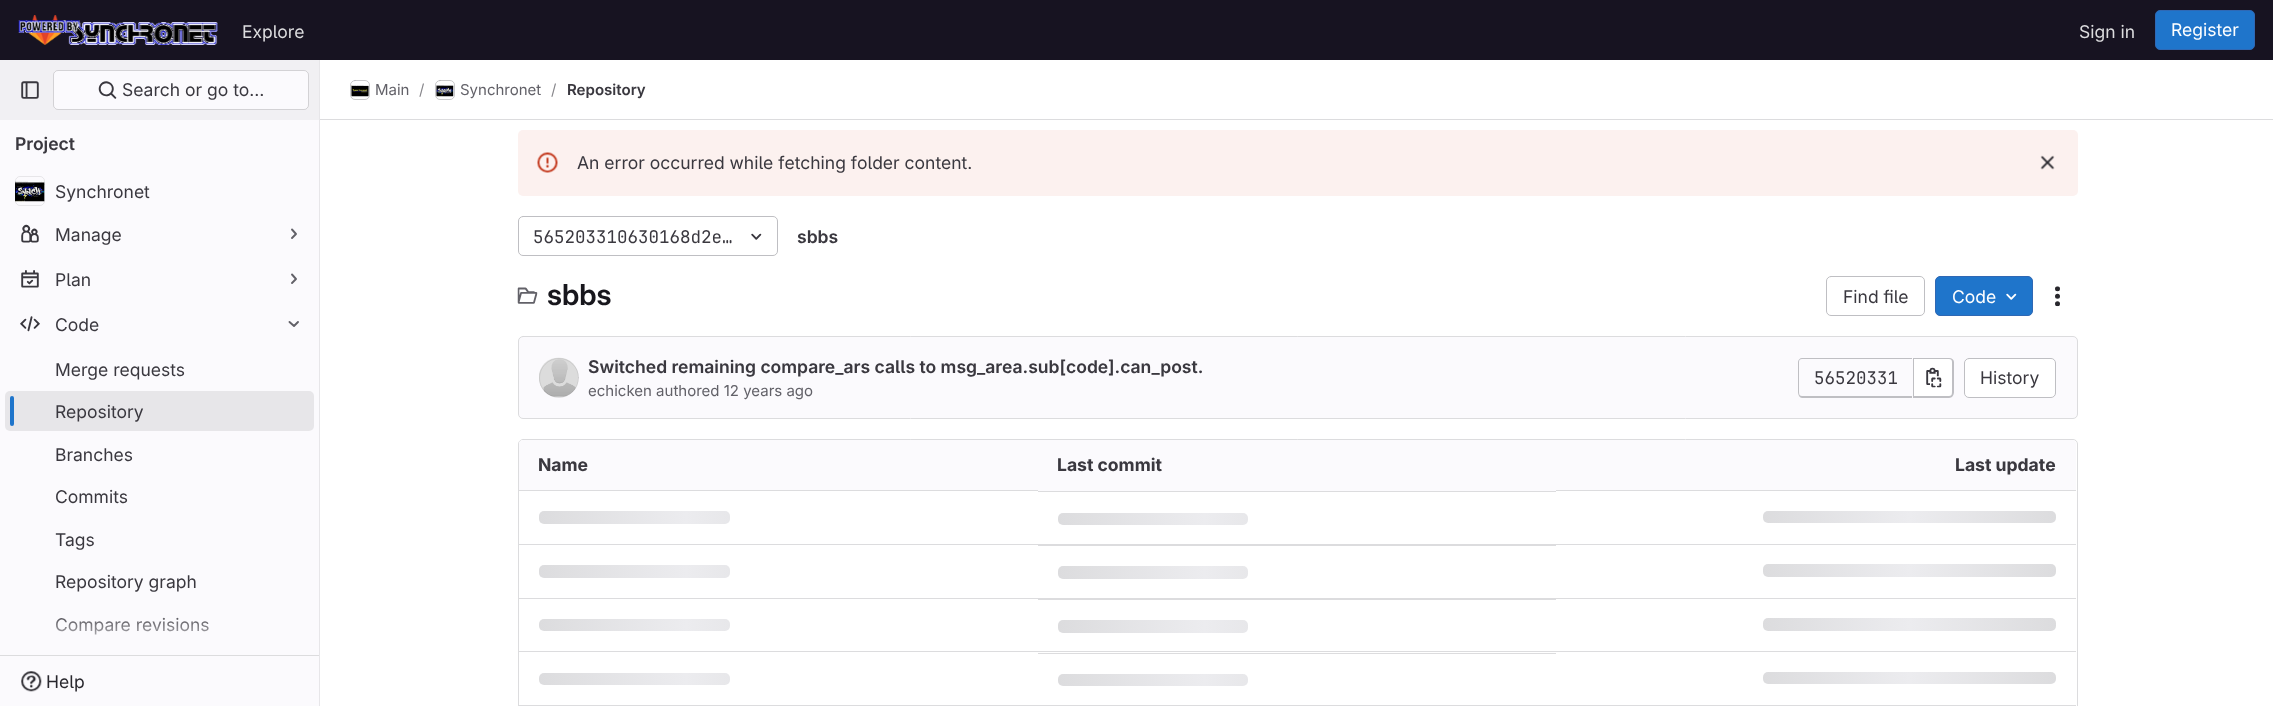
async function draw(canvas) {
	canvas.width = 2273;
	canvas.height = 706;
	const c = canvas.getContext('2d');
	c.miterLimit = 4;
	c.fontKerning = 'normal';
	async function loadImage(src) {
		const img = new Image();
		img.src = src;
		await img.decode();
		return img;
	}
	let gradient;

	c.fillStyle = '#fff';
	c.fillRect(0, 0, 2273, 706);
	c.fillStyle = '#171321';
	c.fillRect(0, 0, 2273, 60);
	c.drawImage(await loadImage('img1.png'), 18, 15, 200, 30);
	c.font = '17.5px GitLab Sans';
	c.fillStyle = '#dcdcde';
	c.fillText('Explore', 242, 38);
	c.fillText('Sign in', 2079, 38);
	c.fillStyle = '#1f75cb';
	c.beginPath();
	c.roundRect(2155.5, 10.5, 99, 39, 4.5);
	c.fill();
	c.strokeStyle = '#2f68b4';
	c.stroke();
	c.fillStyle = '#fff';
	c.fillText('Register', 2171, 36);
	for (const [x, y, w, h, color] of [
		[0, 120, 319, 586, '#fbfafd'],
		[319, 60, 1, 646, '#e7e6e9'],
		[0, 60, 319, 60, '#f1f0f3'],
	]) {
		c.fillStyle = color;
		c.fillRect(x, y, w, h);
	}
	c.drawImage(await loadImage('img2.png'), 21, 81, 18, 18);
	c.fillStyle = '#fbfafd';
	c.beginPath();
	c.roundRect(53, 70, 256, 40, 5);
	c.fill();
	c.beginPath();
	c.roundRect(53.5, 70.5, 255, 39, 4.5);
	c.strokeStyle = '#05050629';
	c.stroke();
	c.drawImage(await loadImage('img3.png'), 98, 81, 19, 18);
	c.fillStyle = '#3a383f';
	c.fillText('Search or go to…', 122, 96);
	c.font = '600 17.5px GitLab Sans';
	c.fillText('Project', 15, 150);
	c.fillStyle = '#dcdcde';
	c.fillRect(0, 655, 319, 1);
	c.drawImage(await loadImage('img4.png'), 15, 181, 30, 21);
	c.beginPath();
	c.roundRect(15.5, 176.5, 29, 29, 4.5);
	c.strokeStyle = '#05050614';
	c.stroke();
	c.font = '17.5px GitLab Sans';
	c.fillStyle = '#3a383f';
	c.fillText('Synchronet', 55, 198);
	c.drawImage(await loadImage('img5.png'), 21, 224, 18, 19);
	c.fillText('Manage', 55, 241);
	c.beginPath();
	c.moveTo(292, 229.5);
	c.lineTo(296, 234);
	c.lineTo(292, 238);
	c.strokeStyle = '#626168';
	c.lineWidth = 1.9;
	c.lineCap = 'round';
	c.lineJoin = 'round';
	c.stroke();
	c.drawImage(await loadImage('img6.png'), 21, 270, 18, 18);
	c.fillText('Plan', 55, 286);
	c.beginPath();
	c.moveTo(292, 274.5);
	c.lineTo(296, 279);
	c.lineTo(292, 283);
	c.stroke();
	c.drawImage(await loadImage('img7.png'), 20, 316, 20, 16);
	c.fillText('Code', 55, 331);
	c.beginPath();
	c.moveTo(298, 322);
	c.lineTo(294, 326);
	c.lineTo(289.5, 322);
	c.stroke();
	c.fillText('Merge requests', 55, 376);
	c.fillStyle = '#e7e6e9';
	c.beginPath();
	c.roundRect(5, 391, 309, 40, 5);
	c.fill();
	c.fillStyle = '#1f75cb';
	c.beginPath();
	c.roundRect(10, 396, 4, 30, 2);
	c.fill();
	c.fillStyle = '#3a383f';
	for (const [text, x, y] of [
		['Repository', 55, 418],
		['Branches', 55, 461],
		['Commits', 55, 503],
		['Tags', 55, 546],
		['Repository graph', 55, 588],
		['Compare revisions', 55, 631],
	]) {
		c.fillText(text, x, y);
	}
	gradient = c.createLinearGradient(159, 610, 159, 655);
	gradient.addColorStop(0, '#fbfafd00');
	gradient.addColorStop(1, '#fbfafd');
	c.fillStyle = gradient;
	c.fillRect(56, 617, 153, 18);
	c.drawImage(await loadImage('img8.png'), 21, 671, 21, 21);
	c.fillStyle = '#28272d';
	c.fillText('Help', 46, 688);
	c.fillStyle = '#dcdcde';
	c.fillRect(320, 119, 1953, 1);
	c.beginPath();
	c.roundRect(350.5, 80.5, 19, 19, 4.5);
	c.strokeStyle = '#dcdcde';
	c.lineWidth = 1;
	c.lineJoin = 'miter';
	c.stroke();
	c.drawImage(await loadImage('img9.png'), 351, 85, 18, 12);
	c.beginPath();
	c.roundRect(350.5, 80.5, 19, 19, 4.5);
	c.strokeStyle = '#05050614';
	c.stroke();
	c.font = '15px GitLab Sans';
	c.fillStyle = '#626168';
	c.fillText('Main', 375, 95);
	c.fillStyle = '#89888d';
	c.fillText('/', 419, 95);
	c.beginPath();
	c.roundRect(435.5, 80.5, 19, 19, 4.5);
	c.strokeStyle = '#dcdcde';
	c.stroke();
	c.drawImage(await loadImage('img10.png'), 436, 85, 18, 12);
	c.beginPath();
	c.roundRect(435.5, 80.5, 19, 19, 4.5);
	c.strokeStyle = '#05050614';
	c.stroke();
	c.fillStyle = '#626168';
	c.fillText('Synchronet', 460, 95);
	c.fillStyle = '#89888d';
	c.fillText('/', 551, 95);
	c.font = '600 15px GitLab Sans';
	c.fillStyle = '#3a383f';
	c.fillText('Repository', 567, 95);
	c.fillStyle = '#fcf1ef';
	c.beginPath();
	c.roundRect(518, 130, 1560, 66, 5);
	c.fill();
	c.drawImage(await loadImage('img11.png'), 537, 152, 21, 21);
	c.font = '17.5px GitLab Sans';
	c.fillStyle = '#3a383f';
	c.fillText('An error occurred while fetching folder content.', 577, 169);
	c.drawImage(await loadImage('img12.png'), 2040, 155, 15, 15);
	c.beginPath();
	c.roundRect(518.5, 216.5, 259, 39, 4.5);
	c.strokeStyle = '#bfbfc3';
	c.stroke();
	c.font = '17.5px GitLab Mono';
	c.fillText('565203310630168d2e…', 533, 243);
	c.drawImage(await loadImage('img13.png'), 751, 233, 11, 7);
	c.font = '600 17.5px GitLab Sans';
	c.fillText('sbbs', 797, 243);
	c.drawImage(await loadImage('img14.png'), 517, 287, 21, 17);
	c.font = '600 29px "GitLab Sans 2"';
	c.fillStyle = '#18171d';
	c.fillText('sbbs', 547, 305);
	c.beginPath();
	c.roundRect(1826.5, 276.5, 98, 39, 4.5);
	c.stroke();
	c.font = '17.5px GitLab Sans';
	c.fillStyle = '#3a383f';
	c.fillText('Find file', 1843, 303);
	c.fillStyle = '#1f75cb';
	c.beginPath();
	c.roundRect(1935.5, 276.5, 97, 39, 4.5);
	c.fill();
	c.strokeStyle = '#2f68b4';
	c.stroke();
	c.fillStyle = '#fff';
	c.fillText('Code', 1952, 303);
	c.drawImage(await loadImage('img15.png'), 2006, 293, 11, 7);
	c.drawImage(await loadImage('img16.png'), 2055, 286, 5, 21);
	c.fillStyle = '#fbfafd';
	c.beginPath();
	c.roundRect(518.5, 336.5, 1559, 82, 4.5);
	c.fill();
	c.strokeStyle = '#dcdcde';
	c.stroke();
	c.drawImage(await loadImage('img17.png'), 539, 357, 40, 41);
	c.beginPath();
	c.arc(559, 378, 19.5, 0, 2 * Math.PI);
	c.strokeStyle = '#05050614';
	c.stroke();
	c.font = '600 17.5px GitLab Sans';
	c.fillStyle = '#3a383f';
	c.fillText('Switched remaining compare_ars calls to msg_area.sub[code].can_post.', 588, 373);
	c.font = '15px GitLab Sans';
	c.fillStyle = '#626168';
	c.fillText('echicken authored 12 years ago', 588, 396);
	c.fillStyle = '#bfbfc3';
	c.beginPath();
	c.moveTo(1802, 358);
	c.lineTo(1912, 358);
	c.lineTo(1912, 398);
	c.lineTo(1802, 398);
	c.bezierCurveTo(1800, 398, 1798, 395, 1798, 392);
	c.lineTo(1798, 362);
	c.bezierCurveTo(1798, 360, 1800, 358, 1802, 358);
	c.closePath();
	c.moveTo(1802, 359);
	c.lineTo(1912, 359);
	c.lineTo(1912, 396);
	c.lineTo(1802, 396);
	c.bezierCurveTo(1800, 396, 1799, 395, 1799, 392);
	c.lineTo(1799, 362);
	c.bezierCurveTo(1799, 360, 1800, 359, 1802, 359);
	c.closePath();
	c.fill('evenodd');
	c.font = '17.5px GitLab Mono';
	c.fillStyle = '#3a383f';
	c.fillText('56520331', 1814, 384);
	c.fillStyle = '#fff';
	c.beginPath();
	c.roundRect(1914, 359, 39, 37, [0, 4, 4, 0]);
	c.fill();
	c.fillStyle = '#bfbfc3';
	c.beginPath();
	c.moveTo(1914, 358);
	c.lineTo(1949, 358);
	c.bezierCurveTo(1952, 358, 1954, 360, 1954, 362);
	c.lineTo(1954, 392);
	c.bezierCurveTo(1954, 395, 1952, 398, 1949, 398);
	c.lineTo(1914, 398);
	c.closePath();
	c.moveTo(1914, 359);
	c.lineTo(1949, 359);
	c.bezierCurveTo(1951, 359, 1952, 360, 1952, 362);
	c.lineTo(1952, 392);
	c.bezierCurveTo(1952, 395, 1951, 396, 1949, 396);
	c.lineTo(1914, 396);
	c.closePath();
	c.fill('evenodd');
	c.fillRect(1913, 358, 1, 40);
	c.drawImage(await loadImage('img18.png'), 1926, 367, 16, 21);
	c.fillStyle = '#fff';
	c.beginPath();
	c.roundRect(1964.5, 358.5, 91, 39, 4.5);
	c.fill();
	c.strokeStyle = '#bfbfc3';
	c.stroke();
	c.font = '17.5px GitLab Sans';
	c.fillStyle = '#3a383f';
	c.fillText('History', 1980, 384);
	c.beginPath();
	c.roundRect(518.5, 439.5, 1559, 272, 4.5);
	c.strokeStyle = '#dcdcde';
	c.stroke();
	c.fillStyle = '#fbfafd';
	c.beginPath();
	c.roundRect(519, 440, 519, 51, [4, 0, 0, 0]);
	c.fill();
	c.font = 'bold 17.5px GitLab Sans';
	c.fillStyle = '#3a383f';
	c.fillText('Name', 538, 471);
	c.fillStyle = '#fbfafd';
	c.fillRect(1038, 440, 518, 51);
	c.fillStyle = '#3a383f';
	c.fillText('Last commit', 1057, 471);
	c.fillStyle = '#fbfafd';
	c.beginPath();
	c.roundRect(1556, 440, 520, 51, [0, 4, 0, 0]);
	c.fill();
	c.fillStyle = '#3a383f';
	c.fillText('Last update', 1955, 471);
	c.fillStyle = '#dcdcde';
	c.fillRect(519, 544, 1557, 1);
	c.fillRect(519, 490, 519, 1);
	gradient = c.createLinearGradient(539, 511, 833, 511);
	gradient.addColorStop(0, '#dcdcde');
	gradient.addColorStop(0.5, '#ececef');
	gradient.addColorStop(1, '#dcdcde');
	c.fillStyle = gradient;
	c.beginPath();
	c.roundRect(539, 511, 191, 13, 5);
	c.fill();
	c.fillStyle = '#dcdcde';
	c.fillRect(1038, 491, 518, 1);
	gradient = c.createLinearGradient(1058, 513, 1351, 513);
	gradient.addColorStop(0, '#dcdcde');
	gradient.addColorStop(0.5, '#ececef');
	gradient.addColorStop(1, '#dcdcde');
	c.fillStyle = gradient;
	c.beginPath();
	c.roundRect(1058, 513, 190, 12, 5);
	c.fill();
	c.fillStyle = '#dcdcde';
	c.fillRect(1556, 490, 520, 1);
	gradient = c.createLinearGradient(1763, 511, 2056, 511);
	gradient.addColorStop(0, '#dcdcde');
	gradient.addColorStop(0.5, '#ececef');
	gradient.addColorStop(1, '#dcdcde');
	c.fillStyle = gradient;
	c.beginPath();
	c.roundRect(1763, 511, 293, 12, 5);
	c.fill();
	c.fillStyle = '#dcdcde';
	c.fillRect(519, 598, 1557, 1);
	gradient = c.createLinearGradient(539, 565, 833, 565);
	gradient.addColorStop(0, '#dcdcde');
	gradient.addColorStop(0.5, '#ececef');
	gradient.addColorStop(1, '#dcdcde');
	c.fillStyle = gradient;
	c.beginPath();
	c.roundRect(539, 565, 191, 13, 5);
	c.fill();
	c.fillStyle = '#dcdcde';
	c.fillRect(1038, 545, 518, 1);
	gradient = c.createLinearGradient(1058, 566, 1351, 566);
	gradient.addColorStop(0, '#dcdcde');
	gradient.addColorStop(0.5, '#ececef');
	gradient.addColorStop(1, '#dcdcde');
	c.fillStyle = gradient;
	c.beginPath();
	c.roundRect(1058, 566, 190, 13, 5);
	c.fill();
	gradient = c.createLinearGradient(1763, 564, 2056, 564);
	gradient.addColorStop(0, '#dcdcde');
	gradient.addColorStop(0.5, '#ececef');
	gradient.addColorStop(1, '#dcdcde');
	c.fillStyle = gradient;
	c.beginPath();
	c.roundRect(1763, 564, 293, 13, 5);
	c.fill();
	c.fillStyle = '#dcdcde';
	c.fillRect(519, 651, 1557, 1);
	gradient = c.createLinearGradient(539, 619, 833, 619);
	gradient.addColorStop(0, '#dcdcde');
	gradient.addColorStop(0.5, '#ececef');
	gradient.addColorStop(1, '#dcdcde');
	c.fillStyle = gradient;
	c.beginPath();
	c.roundRect(539, 619, 191, 12, 5);
	c.fill();
	c.fillStyle = '#dcdcde';
	c.fillRect(1038, 599, 518, 1);
	gradient = c.createLinearGradient(1058, 620, 1351, 620);
	gradient.addColorStop(0, '#dcdcde');
	gradient.addColorStop(0.5, '#ececef');
	gradient.addColorStop(1, '#dcdcde');
	c.fillStyle = gradient;
	c.beginPath();
	c.roundRect(1058, 620, 190, 13, 5);
	c.fill();
	gradient = c.createLinearGradient(1763, 618, 2056, 618);
	gradient.addColorStop(0, '#dcdcde');
	gradient.addColorStop(0.5, '#ececef');
	gradient.addColorStop(1, '#dcdcde');
	c.fillStyle = gradient;
	c.beginPath();
	c.roundRect(1763, 618, 293, 13, 5);
	c.fill();
	c.fillStyle = '#dcdcde';
	c.fillRect(519, 705, 1557, 1);
	gradient = c.createLinearGradient(539, 673, 833, 673);
	gradient.addColorStop(0, '#dcdcde');
	gradient.addColorStop(0.5, '#ececef');
	gradient.addColorStop(1, '#dcdcde');
	c.fillStyle = gradient;
	c.beginPath();
	c.roundRect(539, 673, 191, 12, 5);
	c.fill();
	c.fillStyle = '#dcdcde';
	c.fillRect(1038, 653, 518, 1);
	gradient = c.createLinearGradient(1058, 674, 1351, 674);
	gradient.addColorStop(0, '#dcdcde');
	gradient.addColorStop(0.5, '#ececef');
	gradient.addColorStop(1, '#dcdcde');
	c.fillStyle = gradient;
	c.beginPath();
	c.roundRect(1058, 674, 190, 12, 5);
	c.fill();
	gradient = c.createLinearGradient(1763, 672, 2056, 672);
	gradient.addColorStop(0, '#dcdcde');
	gradient.addColorStop(0.5, '#ececef');
	gradient.addColorStop(1, '#dcdcde');
	c.fillStyle = gradient;
	c.beginPath();
	c.roundRect(1763, 672, 293, 12, 5);
	c.fill();
}

draw(document.querySelector('canvas'));
